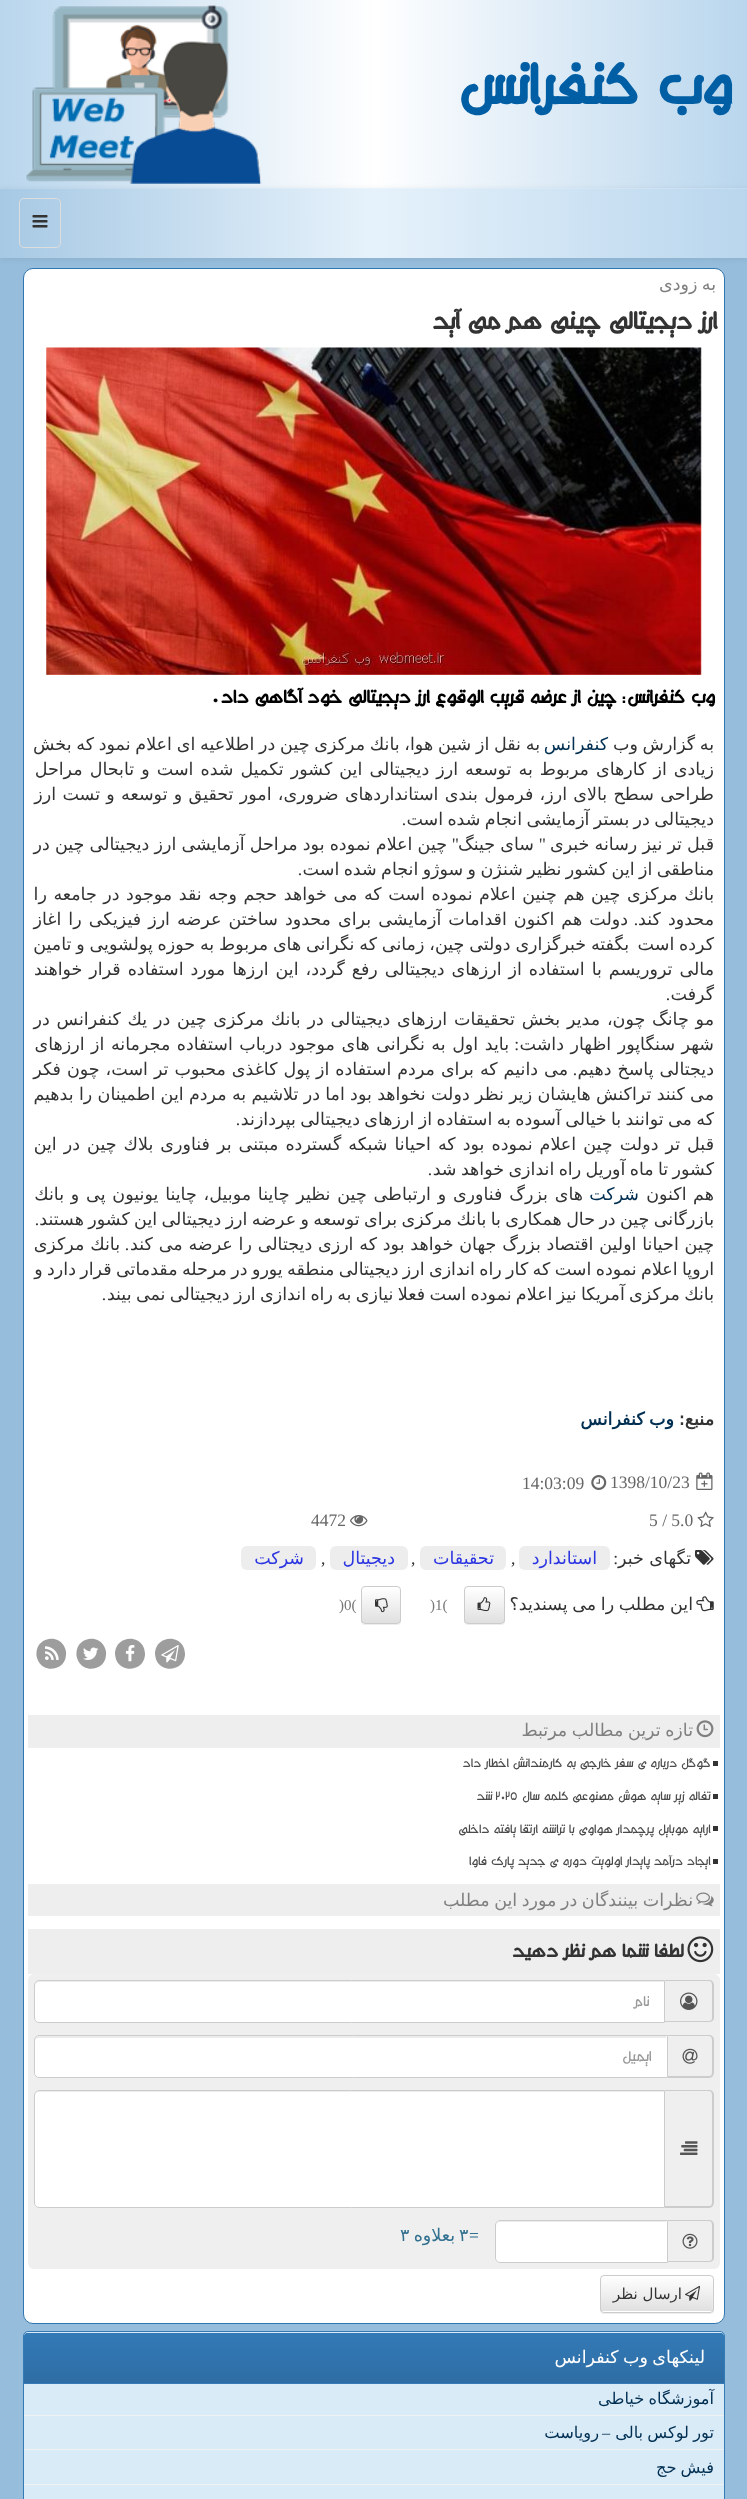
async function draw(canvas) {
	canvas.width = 747;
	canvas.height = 2499;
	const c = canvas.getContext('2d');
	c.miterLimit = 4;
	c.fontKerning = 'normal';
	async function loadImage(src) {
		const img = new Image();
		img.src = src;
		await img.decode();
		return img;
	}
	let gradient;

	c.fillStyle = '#96bddc';
	c.fillRect(0, 0, 747, 2499);
	gradient = c.createLinearGradient(0, 94, 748, 94);
	gradient.addColorStop(0, '#b9d6ed');
	gradient.addColorStop(0.5, '#fff');
	gradient.addColorStop(1, '#b9d6ed');
	c.fillStyle = gradient;
	c.fillRect(0, 0, 747, 188);
	c.direction = 'rtl';
	c.font = 'bold 70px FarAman';
	c.fillStyle = '#005ea4';
	c.fillText('وب كنفرانس', 729, 104);
	c.drawImage(await loadImage('img1.png'), 25, 5, 237, 179);
	c.fillStyle = '#00000012';
	c.filter = 'blur(3px)';
	c.beginPath();
	c.rect(0, 189, 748, 70);
	c.fill();
	c.filter = 'none';
	gradient = c.createLinearGradient(0, 223, 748, 222);
	gradient.addColorStop(0, '#a7c9e4');
	gradient.addColorStop(0.5, '#e6f2fb');
	gradient.addColorStop(1, '#b9d6ed');
	c.fillStyle = gradient;
	c.fillRect(0, 189, 747, 69);
	gradient = c.createLinearGradient(0, 223, 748, 222);
	gradient.addColorStop(0, '#b4d1e8');
	gradient.addColorStop(0.5, '#eaf4fc');
	gradient.addColorStop(1, '#c4dcf0');
	c.fillStyle = gradient;
	c.fillRect(0, 188, 747, 1);
	c.beginPath();
	c.roundRect(19.5, 198.5, 41, 49, 4.5);
	c.strokeStyle = '#ddd';
	c.stroke();
	c.drawImage(await loadImage('img2.png'), 32, 215, 16, 13);
	c.fillStyle = '#fff';
	c.beginPath();
	c.roundRect(23.5, 268.5, 701, 2055, 9.5);
	c.fill();
	c.strokeStyle = '#3276b1';
	c.stroke();
	c.wordSpacing = '-1.2px';
	c.font = '17.5px DejaVu Sans';
	c.fillStyle = '#808080';
	c.fillText('به زودی', 716, 290);
	c.wordSpacing = '0px';
	c.font = 'bold 30px FarAman';
	c.fillStyle = '#333';
	c.fillText('ارز دیجیتالی چینی هم می آید', 716, 329);
	c.drawImage(await loadImage('img3.png'), 46, 347, 656, 328);
	c.font = 'bold 22.5px FarAman';
	c.fillStyle = '#000';
	c.fillText('وب كنفرانس: چین از عرضه قریب الوقوع ارز دیجیتالی خود آگاهی داد.', 714, 703);
	c.wordSpacing = '-1px';
	c.font = '17.5px DejaVu Sans';
	c.fillStyle = '#333';
	c.fillText('به گزارش وب', 714, 750);
	c.wordSpacing = '0px';
	c.fillStyle = '#002f52';
	c.fillText('كنفرانس', 608, 750);
	c.wordSpacing = '-0.8px';
	c.fillStyle = '#333';
	c.fillText('به نقل از شین هوا، بانك مركزی چین در اطلاعیه ای اعلام نمود كه بخش', 540, 750);
	c.wordSpacing = '1.5px';
	c.fillText('زیادی از كارهای مربوط به توسعه ارز دیجیتالی این كشور تكمیل شده است و تابحال مراحل', 714, 775);
	c.wordSpacing = '0.75px';
	c.fillText('طراحی سطح بالای ارز، فرمول بندی استانداردهای ضروری، امور تحقیق و توسعه و تست ارز', 714, 800);
	c.wordSpacing = '-1.2px';
	c.fillText('دیجیتالی در بستر آزمایشی انجام شده است', 714, 825);
	c.wordSpacing = '0px';
	c.font = '17.5px Liberation Serif';
	c.fillText('.', 406, 825);
	c.wordSpacing = '-0.4px';
	c.font = '17.5px DejaVu Sans';
	c.fillText('قبل تر نیز رسانه خبری', 714, 850);
	c.wordSpacing = '0px';
	c.font = '17.5px Liberation Serif';
	c.fillText('"', 546, 850);
	c.wordSpacing = '-0.4px';
	c.font = '17.5px DejaVu Sans';
	c.fillText('سای جینگ', 534, 850);
	c.wordSpacing = '0px';
	c.font = '17.5px Liberation Serif';
	c.fillText('"', 459, 850);
	c.wordSpacing = '-0.4px';
	c.font = '17.5px DejaVu Sans';
	c.fillText('چین اعلام نموده بود مراحل آزمایشی ارز دیجیتالی چین در', 447, 850);
	c.wordSpacing = '-1.2px';
	c.fillText('مناطقی از این كشور نظیر شنژن و سوژو انجام شده است', 714, 875);
	c.wordSpacing = '0px';
	c.font = '17.5px Liberation Serif';
	c.fillText('.', 302, 875);
	c.wordSpacing = '1px';
	c.font = '17.5px DejaVu Sans';
	c.fillText('بانك مركزی چین هم چنین اعلام نموده است كه می خواهد حجم وجه نقد موجود در جامعه را', 714, 900);
	c.wordSpacing = '1.5px';
	c.fillText('محدود كند', 714, 925);
	c.wordSpacing = '0px';
	c.font = '17.5px Liberation Serif';
	c.fillText('.', 638, 925);
	c.wordSpacing = '1.5px';
	c.font = '17.5px DejaVu Sans';
	c.fillText('دولت هم اكنون اقدامات آزمایشی برای محدود ساختن عرضه ارز فیزیكی را اغاز', 628, 925);
	c.wordSpacing = '-0.75px';
	c.fillText('كرده است', 714, 950);
	c.fillText('بگفته خبرگزاری دولتی چین، زمانی كه نگرانی های مربوط به حوزه پولشویی و تامین', 629, 950);
	c.wordSpacing = '1.4px';
	c.fillText('مالی تروریسم با استفاده از ارزهای دیجیتالی رفع گردد، این ارزها مورد استفاده قرار خواهند', 714, 975);
	c.wordSpacing = '0px';
	c.fillText('گرفت', 714, 1000);
	c.font = '17.5px Liberation Serif';
	c.fillText('.', 670, 1000);
	c.wordSpacing = '1.25px';
	c.font = '17.5px DejaVu Sans';
	c.fillText('مو چانگ چون، مدیر بخش تحقیقات ارزهای دیجیتالی در بانك مركزی چین در یك كنفرانس در', 714, 1025);
	c.wordSpacing = '1px';
	c.fillText('شهر سنگاپور اظهار داشت', 714, 1050);
	c.wordSpacing = '0px';
	c.font = '17.5px Liberation Serif';
	c.fillText(':', 519, 1050);
	c.wordSpacing = '1px';
	c.font = '17.5px DejaVu Sans';
	c.fillText('باید اول به نگرانی های موجود درباب استفاده مجرمانه از ارزهای', 509, 1050);
	c.wordSpacing = '0.4px';
	c.fillText('دیجتالی پاسخ دهیم', 714, 1075);
	c.wordSpacing = '0px';
	c.font = '17.5px Liberation Serif';
	c.fillText('.', 577, 1075);
	c.wordSpacing = '0.4px';
	c.font = '17.5px DejaVu Sans';
	c.fillText('می دانیم كه برای مردم استفاده از پول كاغذی محبوب تر است، چون فكر', 568, 1075);
	c.wordSpacing = '-0.25px';
	c.fillText('می كنند تراكنش هایشان زیر نظر دولت نخواهد بود اما در تلاشیم به مردم این اطمینان را بدهیم', 714, 1100);
	c.wordSpacing = '-1.2px';
	c.fillText('كه می توانند با خیالی آسوده به استفاده از ارزهای دیجیتالی بپردازند', 714, 1125);
	c.wordSpacing = '0px';
	c.font = '17.5px Liberation Serif';
	c.fillText('.', 240, 1125);
	c.wordSpacing = '1.5px';
	c.font = '17.5px DejaVu Sans';
	c.fillText('قبل تر دولت چین اعلام نموده بود كه احیانا شبكه گسترده مبتنی بر فناوری بلاك چین در این', 714, 1150);
	c.wordSpacing = '-1.2px';
	c.fillText('كشور تا ماه آوریل راه اندازی خواهد شد', 714, 1175);
	c.wordSpacing = '0px';
	c.font = '17.5px Liberation Serif';
	c.fillText('.', 432, 1175);
	c.wordSpacing = '1px';
	c.font = '17.5px DejaVu Sans';
	c.fillText('هم اكنون', 714, 1200);
	c.wordSpacing = '0px';
	c.fillStyle = '#002f52';
	c.fillText('شركت', 639, 1200);
	c.wordSpacing = '1.25px';
	c.fillStyle = '#333';
	c.fillText('های بزرگ فناوری و ارتباطی چین نظیر چاینا موبیل، چاینا یونیون پی و بانك', 583, 1200);
	c.wordSpacing = '-1.2px';
	c.fillText('بازرگانی چین در حال همكاری با بانك مركزی برای توسعه و عرضه ارز دیجیتالی این كشور هستند', 714, 1225);
	c.wordSpacing = '0px';
	c.font = '17.5px Liberation Serif';
	c.fillText('.', 39, 1225);
	c.wordSpacing = '0.25px';
	c.font = '17.5px DejaVu Sans';
	c.fillText('چین احیانا اولین اقتصاد بزرگ جهان خواهد بود كه ارزی دیجتالی را عرضه می كند', 714, 1250);
	c.wordSpacing = '0px';
	c.font = '17.5px Liberation Serif';
	c.fillText('.', 129, 1250);
	c.wordSpacing = '0.25px';
	c.font = '17.5px DejaVu Sans';
	c.fillText('بانك مركزی', 120, 1250);
	c.wordSpacing = '-1.2px';
	c.fillText('اروپا اعلام نموده است كه كار راه اندازی ارز دیجیتالی منطقه یورو در مرحله مقدماتی قرار دارد و', 714, 1275);
	c.fillText('بانك مركزی آمریكا نیز اعلام نموده است فعلا نیازی به راه اندازی ارز دیجیتالی نمی بیند', 714, 1300);
	c.wordSpacing = '0px';
	c.font = '17.5px Liberation Serif';
	c.fillText('.', 106, 1300);
	c.font = 'bold 17.5px DejaVu Sans';
	c.fillText('منبع:', 714, 1425);
	c.wordSpacing = '-1px';
	c.fillStyle = '#002f52';
	c.fillText('وب كنفرانس', 674, 1425);
	c.drawImage(await loadImage('img4.png'), 696, 1472, 17, 18);
	c.wordSpacing = '0px';
	c.direction = 'ltr';
	c.font = '17.5px Liberation Serif';
	c.fillStyle = '#666';
	c.fillText('1398/10/23', 610, 1488);
	c.drawImage(await loadImage('img5.png'), 591, 1475, 16, 15);
	c.fillText('14:03:09', 522, 1489);
	c.drawImage(await loadImage('img6.png'), 697, 1511, 17, 16);
	c.fillText('5 / 5.0', 649, 1526);
	c.drawImage(await loadImage('img7.png'), 350, 1515, 18, 12);
	c.fillText('4472', 311, 1526);
	c.drawImage(await loadImage('img8.png'), 695, 1550, 19, 15);
	c.direction = 'rtl';
	c.fillStyle = '#333';
	c.fillText(':', 618, 1564);
	c.font = '17.5px DejaVu Sans';
	c.fillText('تگهای خبر', 691, 1564);
	c.fillStyle = '#ededed';
	c.beginPath();
	c.roundRect(519, 1546, 91, 24, 6);
	c.fill();
	c.fillStyle = '#2b34e1';
	c.fillText('استاندارد', 597, 1564);
	c.direction = 'ltr';
	c.font = '17.5px Liberation Serif';
	c.fillStyle = '#333';
	c.fillText(',', 511, 1564);
	c.fillStyle = '#ededed';
	c.beginPath();
	c.roundRect(420, 1546, 86, 24, 6);
	c.fill();
	c.direction = 'rtl';
	c.font = '17.5px DejaVu Sans';
	c.fillStyle = '#2b34e1';
	c.fillText('تحقیقات', 494, 1564);
	c.direction = 'ltr';
	c.font = '17.5px Liberation Serif';
	c.fillStyle = '#333';
	c.fillText(',', 411, 1564);
	c.fillStyle = '#ededed';
	c.beginPath();
	c.roundRect(330, 1546, 78, 24, 6);
	c.fill();
	c.direction = 'rtl';
	c.font = '17.5px DejaVu Sans';
	c.fillStyle = '#2b34e1';
	c.fillText('دیجیتال', 395, 1564);
	c.direction = 'ltr';
	c.font = '17.5px Liberation Serif';
	c.fillStyle = '#333';
	c.fillText(',', 321, 1564);
	c.fillStyle = '#ededed';
	c.beginPath();
	c.roundRect(241, 1546, 75, 24, 6);
	c.fill();
	c.direction = 'rtl';
	c.font = '17.5px DejaVu Sans';
	c.fillStyle = '#2b34e1';
	c.fillText('شركت', 304, 1564);
	c.drawImage(await loadImage('img9.png'), 696, 1596, 18, 16);
	c.wordSpacing = '-1px';
	c.fillStyle = '#333';
	c.fillText('این مطلب را می پسندید؟', 693, 1610);
	c.fillStyle = '#00000012';
	c.filter = 'blur(0.5px)';
	c.beginPath();
	c.roundRect(464, 1588, 41, 37, 4);
	c.fill();
	c.filter = 'none';
	c.fillStyle = '#fff';
	c.beginPath();
	c.roundRect(464, 1586, 41, 38, 4);
	c.fill();
	c.save();
	c.beginPath();
	c.roundRect(464, 1586, 41, 38, 4);
	c.clip();
	gradient = c.createLinearGradient(484, 1588, 484, 1623);
	gradient.addColorStop(0, '#fff');
	gradient.addColorStop(1, '#e0e0e0');
	c.fillStyle = gradient;
	c.fillRect(464, 1588, 41, 35);
	c.restore();
	c.beginPath();
	c.roundRect(464.5, 1586.5, 40, 37, 3.5);
	c.strokeStyle = '#ccc';
	c.stroke();
	c.drawImage(await loadImage('img10.png'), 477, 1597, 14, 15);
	c.wordSpacing = '0px';
	c.direction = 'ltr';
	c.font = '15px Liberation Serif';
	c.fillStyle = '#777';
	c.fillText(')1(', 430, 1610);
	c.fillStyle = '#00000012';
	c.filter = 'blur(0.5px)';
	c.beginPath();
	c.roundRect(361, 1588, 40, 37, 4);
	c.fill();
	c.filter = 'none';
	c.fillStyle = '#fff';
	c.beginPath();
	c.roundRect(361, 1586, 40, 38, 4);
	c.fill();
	c.save();
	c.beginPath();
	c.roundRect(361, 1586, 40, 38, 4);
	c.clip();
	gradient = c.createLinearGradient(381, 1588, 381, 1623);
	gradient.addColorStop(0, '#fff');
	gradient.addColorStop(1, '#e0e0e0');
	c.fillStyle = gradient;
	c.fillRect(361, 1588, 40, 35);
	c.restore();
	c.beginPath();
	c.roundRect(361.5, 1586.5, 39, 37, 3.5);
	c.stroke();
	c.drawImage(await loadImage('img11.png'), 375, 1598, 13, 15);
	c.fillStyle = '#777';
	c.fillText(')0(', 339, 1610);
	c.fillStyle = '#9d9d9d';
	c.beginPath();
	c.moveTo(183, 1646);
	c.bezierCurveTo(184.5, 1649, 185, 1652, 185, 1655);
	c.bezierCurveTo(184, 1669.5, 164.5, 1674, 157, 1661.5);
	c.bezierCurveTo(155.5, 1658.5, 155, 1655.5, 155, 1652.5);
	c.bezierCurveTo(156, 1638, 175.5, 1633.5, 183, 1646);
	c.closePath();
	c.fill();
	c.drawImage(await loadImage('img12.png'), 161, 1645, 18, 18);
	c.beginPath();
	c.moveTo(143, 1646);
	c.bezierCurveTo(144.5, 1649, 145, 1652, 145, 1655);
	c.bezierCurveTo(144, 1669.5, 124.5, 1674, 117, 1661.5);
	c.bezierCurveTo(115.5, 1658.5, 115, 1655.5, 115, 1652.5);
	c.bezierCurveTo(116, 1638, 135.5, 1633.5, 143, 1646);
	c.closePath();
	c.fill();
	c.drawImage(await loadImage('img13.png'), 125, 1645, 10, 17);
	c.beginPath();
	c.moveTo(104, 1646);
	c.bezierCurveTo(105.5, 1649, 106.5, 1652, 106, 1655);
	c.bezierCurveTo(105.5, 1669.5, 85.5, 1674, 78.5, 1661.5);
	c.bezierCurveTo(77, 1658.5, 76, 1655.5, 76.5, 1652.5);
	c.bezierCurveTo(77, 1638, 97, 1633.5, 104, 1646);
	c.closePath();
	c.fill();
	c.drawImage(await loadImage('img14.png'), 83, 1647, 16, 13);
	c.beginPath();
	c.moveTo(64, 1646);
	c.bezierCurveTo(65.5, 1649, 66.5, 1652, 66, 1655);
	c.bezierCurveTo(65.5, 1669.5, 45.5, 1674, 38.5, 1661.5);
	c.bezierCurveTo(37, 1658.5, 36, 1655.5, 36.5, 1652.5);
	c.bezierCurveTo(37, 1638, 57, 1633.5, 64, 1646);
	c.closePath();
	c.fill();
	c.drawImage(await loadImage('img15.png'), 45, 1646, 14, 14);
	c.fillStyle = '#eee';
	c.fillRect(28, 1715, 692, 33);
	c.drawImage(await loadImage('img16.png'), 696, 1720, 18, 18);
	c.wordSpacing = '-1px';
	c.direction = 'rtl';
	c.font = '17.5px DejaVu Sans';
	c.fillStyle = '#808080';
	c.fillText('تازه ترین مطالب مرتبط', 693, 1736);
	c.fillStyle = '#333';
	c.fillRect(713, 1761, 5, 5);
	c.wordSpacing = '0px';
	c.font = '15px FarAman';
	c.fillStyle = '#4a4a4a';
	c.fillText('گوگل درباره ی سفر خارجی به کارمندانش اخطار داد', 710, 1767);
	c.fillStyle = '#333';
	c.fillRect(713, 1794, 5, 5);
	c.fillStyle = '#4a4a4a';
	c.fillText('تفاله زیر سایه هوش مصنوعی کلمه سال', 710, 1800);
	c.direction = 'ltr';
	c.fillText('2025', 495, 1800);
	c.direction = 'rtl';
	c.fillText('شد', 492, 1800);
	c.fillStyle = '#333';
	c.fillRect(713, 1826, 5, 5);
	c.fillStyle = '#4a4a4a';
	c.fillText('ارایه موبایل پرچمدار هواوی با تراشه ارتقا یافته داخلی', 710, 1833);
	c.fillStyle = '#333';
	c.fillRect(713, 1859, 5, 5);
	c.fillStyle = '#4a4a4a';
	c.fillText('ایجاد درآمد پایدار اولویت دوره ی جدید پارک فاوا', 710, 1865);
	c.fillStyle = '#eee';
	c.fillRect(28, 1884, 692, 32);
	c.drawImage(await loadImage('img17.png'), 696, 1892, 18, 15);
	c.wordSpacing = '-1px';
	c.font = '17.5px DejaVu Sans';
	c.fillStyle = '#808080';
	c.fillText('نظرات بینندگان در مورد این مطلب', 693, 1906);
	c.fillStyle = '#eee';
	c.fillRect(28, 1929, 692, 45);
	c.drawImage(await loadImage('img18.png'), 687, 1936, 27, 27);
	c.wordSpacing = '0px';
	c.font = 'bold 22.5px FarAman';
	c.fillStyle = '#333';
	c.fillText('لطفا شما هم', 683, 1957);
	c.fillText('نظر دهید', 584, 1957);
	c.fillStyle = '#efefef';
	c.beginPath();
	c.roundRect(28, 1974, 692, 295, 6);
	c.fill();
	c.fillStyle = '#ccc';
	c.beginPath();
	c.moveTo(665, 1980);
	c.lineTo(709, 1980);
	c.bezierCurveTo(712, 1980, 714, 1982, 714, 1985);
	c.lineTo(714, 2018);
	c.bezierCurveTo(714, 2020, 712, 2022, 709, 2022);
	c.lineTo(665, 2022);
	c.closePath();
	c.moveTo(665, 1981);
	c.lineTo(709, 1981);
	c.bezierCurveTo(711, 1981, 712, 1983, 712, 1985);
	c.lineTo(712, 2018);
	c.bezierCurveTo(712, 2020, 711, 2021, 709, 2021);
	c.lineTo(665, 2021);
	c.closePath();
	c.fill('evenodd');
	c.drawImage(await loadImage('img19.png'), 680, 1992, 18, 18);
	c.fillStyle = '#fff';
	c.beginPath();
	c.roundRect(34, 1980, 631, 43, [5, 0, 0, 5]);
	c.fill();
	c.fillStyle = '#ececec';
	c.beginPath();
	c.moveTo(39, 1982);
	c.lineTo(664, 1982);
	c.lineTo(664, 1981);
	c.lineTo(39, 1981);
	c.bezierCurveTo(36, 1981, 35, 1983, 35, 1986);
	c.bezierCurveTo(35, 1984, 37, 1982, 39, 1982);
	c.closePath();
	c.fill();
	c.beginPath();
	c.roundRect(34.5, 1980.5, 630, 42, [4.5, 0, 0, 4.5]);
	c.stroke();
	c.save();
	c.beginPath();
	c.rect(50, 1991, 599, 22);
	c.clip();
	c.font = '17.5px FarAman';
	c.fillStyle = '#999';
	c.fillText('نام', 649, 2006);
	c.restore();
	c.fillStyle = '#ccc';
	c.beginPath();
	c.moveTo(668, 2035);
	c.lineTo(709, 2035);
	c.bezierCurveTo(712, 2035, 714, 2037, 714, 2040);
	c.lineTo(714, 2072);
	c.bezierCurveTo(714, 2075, 712, 2078, 709, 2078);
	c.lineTo(668, 2078);
	c.closePath();
	c.moveTo(668, 2036);
	c.lineTo(709, 2036);
	c.bezierCurveTo(711, 2036, 712, 2038, 712, 2040);
	c.lineTo(712, 2072);
	c.bezierCurveTo(712, 2075, 711, 2076, 709, 2076);
	c.lineTo(668, 2076);
	c.closePath();
	c.fill('evenodd');
	c.drawImage(await loadImage('img20.png'), 682, 2048, 16, 16);
	c.fillStyle = '#fff';
	c.beginPath();
	c.roundRect(34, 2035, 634, 43, [5, 0, 0, 5]);
	c.fill();
	c.fillStyle = '#ececec';
	c.beginPath();
	c.moveTo(39, 2038);
	c.lineTo(666, 2038);
	c.lineTo(666, 2036);
	c.lineTo(39, 2036);
	c.bezierCurveTo(36, 2036, 35, 2038, 35, 2041);
	c.bezierCurveTo(35, 2039, 37, 2038, 39, 2038);
	c.closePath();
	c.fill();
	c.beginPath();
	c.roundRect(34.5, 2035.5, 633, 42, [4.5, 0, 0, 4.5]);
	c.stroke();
	c.save();
	c.beginPath();
	c.rect(50, 2046, 601, 22);
	c.clip();
	c.font = '17.5px FarAman';
	c.fillStyle = '#999';
	c.fillText('ایمیل', 651, 2061);
	c.restore();
	c.fillStyle = '#ccc';
	c.beginPath();
	c.moveTo(665, 2090);
	c.lineTo(709, 2090);
	c.bezierCurveTo(712, 2090, 714, 2092, 714, 2095);
	c.lineTo(714, 2202);
	c.bezierCurveTo(714, 2205, 712, 2208, 709, 2208);
	c.lineTo(665, 2208);
	c.closePath();
	c.moveTo(665, 2091);
	c.lineTo(709, 2091);
	c.bezierCurveTo(711, 2091, 712, 2093, 712, 2095);
	c.lineTo(712, 2202);
	c.bezierCurveTo(712, 2205, 711, 2206, 709, 2206);
	c.lineTo(665, 2206);
	c.closePath();
	c.fill('evenodd');
	c.drawImage(await loadImage('img21.png'), 680, 2141, 18, 14);
	c.fillStyle = '#fff';
	c.beginPath();
	c.roundRect(34, 2090, 631, 118, [5, 0, 0, 5]);
	c.fill();
	c.fillStyle = '#ececec';
	c.beginPath();
	c.moveTo(39, 2092);
	c.lineTo(664, 2092);
	c.lineTo(664, 2091);
	c.lineTo(39, 2091);
	c.bezierCurveTo(36, 2091, 35, 2093, 35, 2096);
	c.bezierCurveTo(35, 2094, 37, 2092, 39, 2092);
	c.closePath();
	c.fill();
	c.beginPath();
	c.roundRect(34.5, 2090.5, 630, 117, [4.5, 0, 0, 4.5]);
	c.stroke();
	c.fillStyle = '#ccc';
	c.beginPath();
	c.moveTo(668, 2220);
	c.lineTo(709, 2220);
	c.bezierCurveTo(712, 2220, 714, 2222, 714, 2225);
	c.lineTo(714, 2258);
	c.bezierCurveTo(714, 2260, 712, 2262, 709, 2262);
	c.lineTo(668, 2262);
	c.closePath();
	c.moveTo(668, 2221);
	c.lineTo(709, 2221);
	c.bezierCurveTo(711, 2221, 712, 2223, 712, 2225);
	c.lineTo(712, 2258);
	c.bezierCurveTo(712, 2260, 711, 2261, 709, 2261);
	c.lineTo(668, 2261);
	c.closePath();
	c.fill('evenodd');
	c.drawImage(await loadImage('img22.png'), 682, 2233, 16, 16);
	c.fillStyle = '#fff';
	c.beginPath();
	c.roundRect(495, 2220, 173, 43, [5, 0, 0, 5]);
	c.fill();
	c.fillStyle = '#ececec';
	c.beginPath();
	c.moveTo(500, 2222);
	c.lineTo(666, 2222);
	c.lineTo(666, 2221);
	c.lineTo(499, 2221);
	c.bezierCurveTo(497, 2222, 496, 2224, 496, 2226);
	c.bezierCurveTo(496, 2224, 498, 2222, 500, 2222);
	c.closePath();
	c.fill();
	c.beginPath();
	c.roundRect(495.5, 2220.5, 172, 42, [4.5, 0, 0, 4.5]);
	c.stroke();
	c.direction = 'ltr';
	c.font = '17.5px Liberation Serif';
	c.fillStyle = '#31708f';
	c.fillText('=', 469, 2241);
	c.font = '17.5px DejaVu Sans';
	c.fillText('۳', 459, 2241);
	c.direction = 'rtl';
	c.fillText('بعلاوه', 455, 2241);
	c.direction = 'ltr';
	c.fillText('۳', 400, 2241);
	c.fillStyle = '#00000012';
	c.filter = 'blur(0.5px)';
	c.beginPath();
	c.roundRect(600, 2276, 114, 38, 4);
	c.fill();
	c.filter = 'none';
	c.fillStyle = '#fff';
	c.beginPath();
	c.roundRect(600, 2275, 114, 38, 4);
	c.fill();
	c.save();
	c.beginPath();
	c.roundRect(600, 2275, 114, 38, 4);
	c.clip();
	gradient = c.createLinearGradient(657, 2276, 657, 2311);
	gradient.addColorStop(0, '#fff');
	gradient.addColorStop(1, '#e0e0e0');
	c.fillStyle = gradient;
	c.fillRect(600, 2276, 114, 35);
	c.restore();
	c.fillStyle = '#ffffff26';
	c.beginPath();
	c.moveTo(604, 2278);
	c.lineTo(692, 2278);
	c.bezierCurveTo(714, 2278, 712, 2273, 712, 2290);
	c.lineTo(712, 2311);
	c.bezierCurveTo(713, 2310, 713, 2309, 713, 2308);
	c.lineTo(713, 2278);
	c.bezierCurveTo(713, 2277, 712, 2276, 710, 2276);
	c.lineTo(604, 2276);
	c.bezierCurveTo(602, 2276, 601, 2277, 601, 2278);
	c.lineTo(601, 2280);
	c.bezierCurveTo(601, 2279, 602, 2278, 604, 2278);
	c.closePath();
	c.fill();
	c.beginPath();
	c.roundRect(600.5, 2275.5, 113, 37, 3.5);
	c.stroke();
	c.drawImage(await loadImage('img23.png'), 685, 2285, 15, 16);
	c.direction = 'rtl';
	c.font = '15px DejaVu Sans';
	c.fillStyle = '#333';
	c.fillText('ارسال نظر', 682, 2299);
	c.fillStyle = '#daebf8';
	c.beginPath();
	c.roundRect(23.5, 2331.5, 701, 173, 4.5);
	c.fill();
	c.strokeStyle = '#337ab7';
	c.stroke();
	c.fillStyle = '#337ab7';
	c.beginPath();
	c.roundRect(24, 2333, 700, 51, [4, 4, 0, 0]);
	c.fill();
	gradient = c.createLinearGradient(374, 2333, 374, 2383);
	gradient.addColorStop(0, '#337ab7');
	gradient.addColorStop(1, '#2e6da4');
	c.fillStyle = gradient;
	c.beginPath();
	c.roundRect(24, 2333, 700, 50, [4, 4, 0, 0]);
	c.fill();
	c.wordSpacing = '-1.2px';
	c.font = '17.5px DejaVu Sans';
	c.fillStyle = '#fff';
	c.fillText('لینکهای وب كنفرانس', 705, 2363);
	c.fillStyle = '#f1f1f1';
	c.fillRect(24, 2415, 700, 1);
	c.wordSpacing = '-1px';
	c.font = '16.25px DejaVu Sans';
	c.fillStyle = '#002f52';
	c.fillText('آموزشگاه خیاطی', 714, 2404);
	c.fillStyle = '#f1f1f1';
	c.fillRect(24, 2449, 700, 1);
	c.fillStyle = '#002f52';
	c.fillText('تور لوکس بالی', 714, 2438);
	c.wordSpacing = '0px';
	c.font = '16.25px Liberation Serif';
	c.fillText('–', 610, 2438);
	c.font = '16.25px DejaVu Sans';
	c.fillText('رویاست', 599, 2438);
	c.fillStyle = '#f1f1f1';
	c.fillRect(24, 2484, 700, 1);
	c.wordSpacing = '-1px';
	c.fillStyle = '#002f52';
	c.fillText('فیش حج', 714, 2473);
}

draw(document.querySelector('canvas'));
